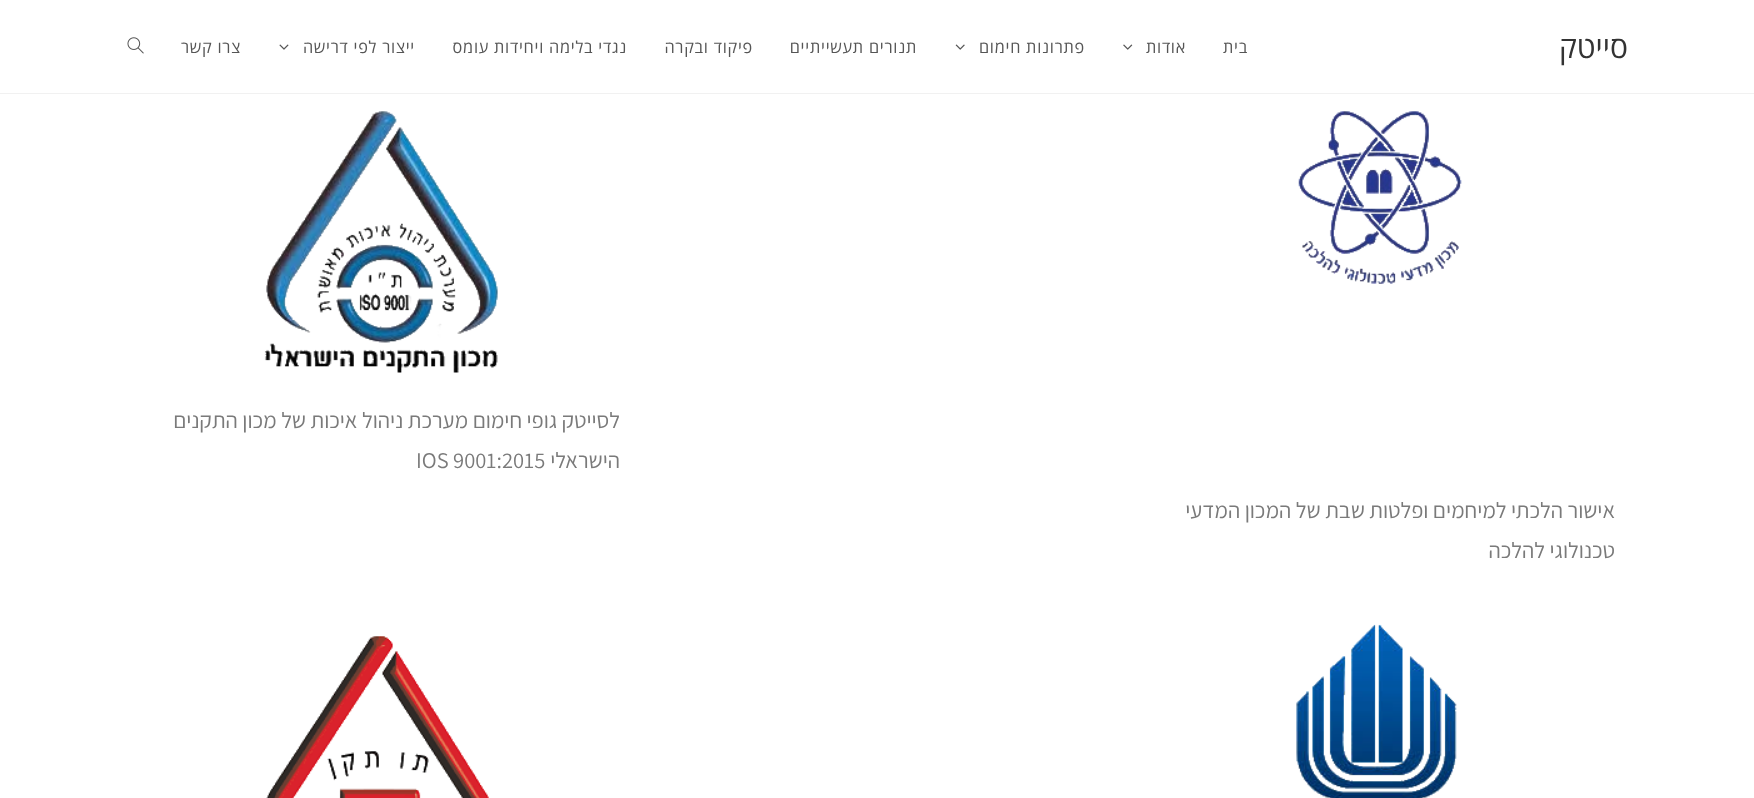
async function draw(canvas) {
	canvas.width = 1754;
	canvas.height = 798;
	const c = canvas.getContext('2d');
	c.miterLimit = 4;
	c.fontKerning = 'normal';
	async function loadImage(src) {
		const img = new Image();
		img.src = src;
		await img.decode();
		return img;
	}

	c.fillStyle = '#fff';
	c.fillRect(0, 0, 1754, 798);
	c.fillStyle = '#f1f1f1';
	c.fillRect(0, 93, 1754, 1);
	c.direction = 'rtl';
	c.font = '30px Open Sans';
	c.fillStyle = '#333';
	c.fillText('סייטק', 1628, 58);
	c.letterSpacing = '0.75px';
	c.font = '16.25px Open Sans';
	c.fillStyle = '#555';
	c.fillText('בית', 1248, 53);
	c.fillText('אודות', 1186, 53);
	c.drawImage(await loadImage('img1.png'), 1123, 44, 10, 6);
	c.fillText('פתרונות חימום', 1085, 53);
	c.drawImage(await loadImage('img2.png'), 955, 44, 10, 6);
	for (const [text, x, y] of [
		['תנורים תעשייתיים', 917, 53],
		['פיקוד ובקרה', 753, 53],
		['נגדי בלימה ויחידות עומס', 627, 53],
		['ייצור לפי דרישה', 415, 53],
	]) {
		c.fillText(text, x, y);
	}
	c.drawImage(await loadImage('img3.png'), 279, 44, 10, 6);
	c.fillText('צרו קשר', 241, 53);
	c.drawImage(await loadImage('img4.png'), 127, 37, 17, 17);
	c.drawImage(await loadImage('img5.png'), 264, 111, 234, 262);
	c.letterSpacing = '0px';
	c.font = '22.5px Assistant';
	c.fillStyle = '#7a7a7a';
	c.fillText('לסייטק גופי חימום מערכת ניהול איכות של מכון התקנים', 620, 428);
	c.fillText('הישראלי', 620, 468);
	c.direction = 'ltr';
	c.fillText('IOS 9001:2015', 416, 468);
	c.drawImage(await loadImage('img6.png'), 1298, 111, 164, 173);
	c.direction = 'rtl';
	c.fillText('אישור הלכתי למיחמים ופלטות שבת של המכון המדעי', 1615, 518);
	c.fillText('טכנולוגי להלכה', 1615, 558);
	c.drawImage(await loadImage('img7.png'), 1296, 624, 161, 174);
	c.drawImage(await loadImage('img8.png'), 266, 636, 223, 162);
}

draw(document.querySelector('canvas'));
